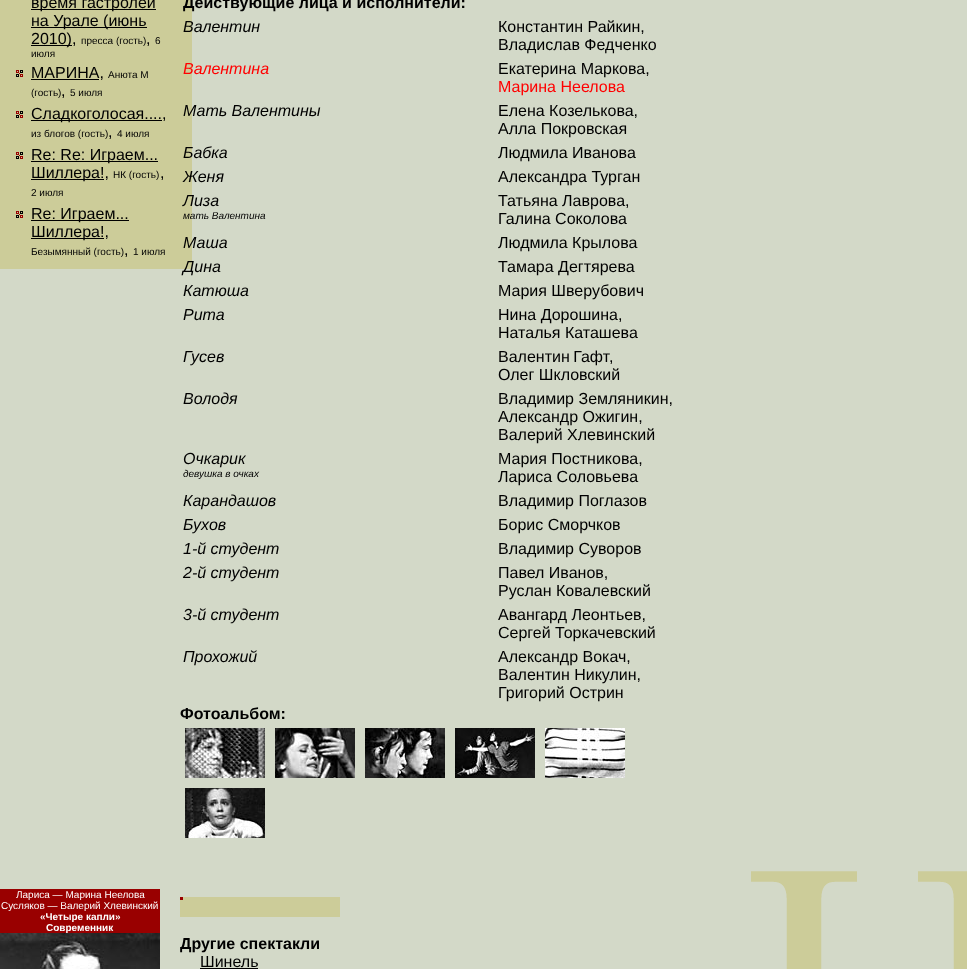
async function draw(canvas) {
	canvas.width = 967;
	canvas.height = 969;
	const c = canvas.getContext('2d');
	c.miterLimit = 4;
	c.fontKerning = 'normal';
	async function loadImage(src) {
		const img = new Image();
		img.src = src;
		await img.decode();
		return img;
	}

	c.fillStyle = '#d3d9c8';
	c.fillRect(0, 0, 967, 969);
	c.fillStyle = '#cc9';
	c.fillRect(0, 0, 192, 269);
	c.fillStyle = '#000';
	c.fillRect(31, 9, 125, 1);
	c.font = '16px Liberation Sans';
	c.fillText('время гастролей', 31, 8);
	c.fillRect(31, 27, 116, 1);
	c.fillText('на Урале (июнь', 31, 26);
	c.fillRect(31, 45, 41, 1);
	c.fillText('2010),', 31, 44);
	c.font = '10px Liberation Sans';
	c.fillText('пресса (гость)', 81, 44);
	c.font = '16px Liberation Sans';
	c.fillText(',', 146, 44);
	c.font = '10px Liberation Sans';
	c.fillText('6', 155, 44);
	c.fillText('июля', 31, 57);
	c.drawImage(await loadImage('img1.png'), 16, 70, 7, 7);
	c.fillRect(31, 79, 68, 1);
	c.font = '16px Liberation Sans';
	c.fillText('МАРИНА,', 31, 78);
	c.font = '10px Liberation Sans';
	c.fillText('Анюта М', 108, 78);
	c.fillText('(гость)', 31, 96);
	c.font = '16px Liberation Sans';
	c.fillText(',', 61, 96);
	c.font = '10px Liberation Sans';
	c.fillText('5 июля', 70, 96);
	c.drawImage(await loadImage('img1.png'), 16, 111, 7, 7);
	c.fillRect(31, 120, 131, 1);
	c.font = '16px Liberation Sans';
	c.fillText('Сладкоголосая....,', 31, 119);
	c.font = '10px Liberation Sans';
	c.fillText('из блогов (гость)', 31, 137);
	c.font = '16px Liberation Sans';
	c.fillText(',', 108, 137);
	c.font = '10px Liberation Sans';
	c.fillText('4 июля', 117, 137);
	c.drawImage(await loadImage('img1.png'), 16, 152, 7, 7);
	c.fillRect(31, 161, 127, 1);
	c.font = '16px Liberation Sans';
	c.fillText('Re: Re: Играем...', 31, 160);
	c.fillRect(31, 179, 73, 1);
	c.fillText('Шиллера!,', 31, 178);
	c.font = '10px Liberation Sans';
	c.fillText('НК (гость)', 113, 178);
	c.font = '16px Liberation Sans';
	c.fillText(',', 160, 178);
	c.font = '10px Liberation Sans';
	c.fillText('2 июля', 31, 196);
	c.drawImage(await loadImage('img1.png'), 16, 211, 7, 7);
	c.fillRect(31, 220, 98, 1);
	c.font = '16px Liberation Sans';
	c.fillText('Re: Играем...', 31, 219);
	c.fillRect(31, 238, 73, 1);
	c.fillText('Шиллера!,', 31, 237);
	c.font = '10px Liberation Sans';
	c.fillText('Безымянный (гость)', 31, 255);
	c.font = '16px Liberation Sans';
	c.fillText(',', 124, 255);
	c.font = '10px Liberation Sans';
	c.fillText('1 июля', 133, 255);
	c.drawImage(await loadImage('img2.png'), 751, 871, 216, 98);
	c.font = 'bold 16px Liberation Sans';
	c.fillText('Действующие лица и исполнители:', 183, 8);
	c.font = 'italic 16px Liberation Sans';
	c.fillText('Валентин', 183, 32);
	c.font = '16px Liberation Sans';
	c.fillText('Константин Райкин,', 498, 32);
	c.fillText('Владислав Федченко', 498, 50);
	c.font = 'italic 16px Liberation Sans';
	c.fillStyle = '#f00';
	c.fillText('Валентина', 183, 74);
	c.font = '16px Liberation Sans';
	c.fillStyle = '#000';
	c.fillText('Екатерина Маркова,', 498, 74);
	c.fillStyle = '#f00';
	c.fillText('Марина Неелова', 498, 92);
	c.font = 'italic 16px Liberation Sans';
	c.fillStyle = '#000';
	c.fillText('Мать Валентины', 183, 116);
	c.font = '16px Liberation Sans';
	c.fillText('Елена Козелькова,', 498, 116);
	c.fillText('Алла Покровская', 498, 134);
	c.font = 'italic 16px Liberation Sans';
	c.fillText('Бабка', 183, 158);
	c.font = '16px Liberation Sans';
	c.fillText('Людмила Иванова', 498, 158);
	c.font = 'italic 16px Liberation Sans';
	c.fillText('Женя', 183, 182);
	c.font = '16px Liberation Sans';
	c.fillText('Александра Турган', 498, 182);
	c.font = 'italic 16px Liberation Sans';
	c.fillText('Лиза', 183, 206);
	c.font = 'italic 10px Liberation Sans';
	c.fillText('мать Валентина', 183, 219);
	c.font = '16px Liberation Sans';
	c.fillText('Татьяна Лаврова,', 498, 206);
	c.fillText('Галина Соколова', 498, 224);
	c.font = 'italic 16px Liberation Sans';
	c.fillText('Маша', 183, 248);
	c.font = '16px Liberation Sans';
	c.fillText('Людмила Крылова', 498, 248);
	c.font = 'italic 16px Liberation Sans';
	c.fillText('Дина', 183, 272);
	c.font = '16px Liberation Sans';
	c.fillText('Тамара Дегтярева', 498, 272);
	c.font = 'italic 16px Liberation Sans';
	c.fillText('Катюша', 183, 296);
	c.font = '16px Liberation Sans';
	c.fillText('Мария Шверубович', 498, 296);
	c.font = 'italic 16px Liberation Sans';
	c.fillText('Рита', 183, 320);
	c.font = '16px Liberation Sans';
	c.fillText('Нина Дорошина,', 498, 320);
	c.fillText('Наталья Каташева', 498, 338);
	c.font = 'italic 16px Liberation Sans';
	c.fillText('Гусев', 183, 362);
	c.wordSpacing = '-1px';
	c.font = '16px Liberation Sans';
	c.fillText('Валентин Гафт', 498, 362);
	c.wordSpacing = '0px';
	c.fillText(',', 609, 362);
	c.fillText('Олег Шкловский', 498, 380);
	c.font = 'italic 16px Liberation Sans';
	c.fillText('Володя', 183, 404);
	c.font = '16px Liberation Sans';
	for (const [text, x, y] of [
		['Владимир Земляникин,', 498, 404],
		['Александр Ожигин,', 498, 422],
		['Валерий Хлевинский', 498, 440],
	]) {
		c.fillText(text, x, y);
	}
	c.font = 'italic 16px Liberation Sans';
	c.fillText('Очкарик', 183, 464);
	c.font = 'italic 10px Liberation Sans';
	c.fillText('девушка в очках', 183, 477);
	c.font = '16px Liberation Sans';
	c.fillText('Мария Постникова,', 498, 464);
	c.fillText('Лариса Соловьева', 498, 482);
	c.font = 'italic 16px Liberation Sans';
	c.fillText('Карандашов', 183, 506);
	c.font = '16px Liberation Sans';
	c.fillText('Владимир Поглазов', 498, 506);
	c.font = 'italic 16px Liberation Sans';
	c.fillText('Бухов', 183, 530);
	c.font = '16px Liberation Sans';
	c.fillText('Борис Сморчков', 498, 530);
	c.font = 'italic 16px Liberation Sans';
	c.fillText('1-й студент', 183, 554);
	c.font = '16px Liberation Sans';
	c.fillText('Владимир Суворов', 498, 554);
	c.font = 'italic 16px Liberation Sans';
	c.fillText('2-й студент', 183, 578);
	c.font = '16px Liberation Sans';
	c.fillText('Павел Иванов,', 498, 578);
	c.fillText('Руслан Ковалевский', 498, 596);
	c.font = 'italic 16px Liberation Sans';
	c.fillText('3-й студент', 183, 620);
	c.font = '16px Liberation Sans';
	c.fillText('Авангард Леонтьев,', 498, 620);
	c.fillText('Сергей Торкачевский', 498, 638);
	c.font = 'italic 16px Liberation Sans';
	c.fillText('Прохожий', 183, 662);
	c.font = '16px Liberation Sans';
	for (const [text, x, y] of [
		['Александр Вокач,', 498, 662],
		['Валентин Никулин,', 498, 680],
		['Григорий Острин', 498, 698],
	]) {
		c.fillText(text, x, y);
	}
	c.font = 'bold 16px Liberation Sans';
	c.fillText('Фотоальбом:', 180, 719);
	c.drawImage(await loadImage('img3.png'), 185, 728, 80, 50);
	c.drawImage(await loadImage('img4.png'), 275, 728, 80, 50);
	c.drawImage(await loadImage('img5.png'), 365, 728, 80, 50);
	c.drawImage(await loadImage('img6.png'), 455, 728, 80, 50);
	c.drawImage(await loadImage('img7.png'), 545, 728, 80, 50);
	c.drawImage(await loadImage('img8.png'), 185, 788, 80, 50);
	c.drawImage(await loadImage('img9.png'), 180, 897, 160, 20);
	c.fillText('Другие спектакли', 180, 949);
	c.font = '16px Liberation Sans';
	c.fillText('Шинель', 200, 967);
	c.fillRect(200, 968, 58, 1);
	c.fillStyle = '#900';
	c.fillRect(0, 889, 160, 44);
	c.font = '10px Liberation Sans';
	c.fillStyle = '#fff';
	c.fillText('Лариса — Марина Неелова', 16, 898);
	c.fillText('Сусляков — Валерий Хлевинский', 1, 909);
	c.font = 'bold 10px Liberation Sans';
	c.fillText('«Четыре капли»', 40, 920);
	c.fillText('Современник', 46, 931);
	c.drawImage(await loadImage('img10.png'), 0, 933, 160, 36);
}

draw(document.querySelector('canvas'));
